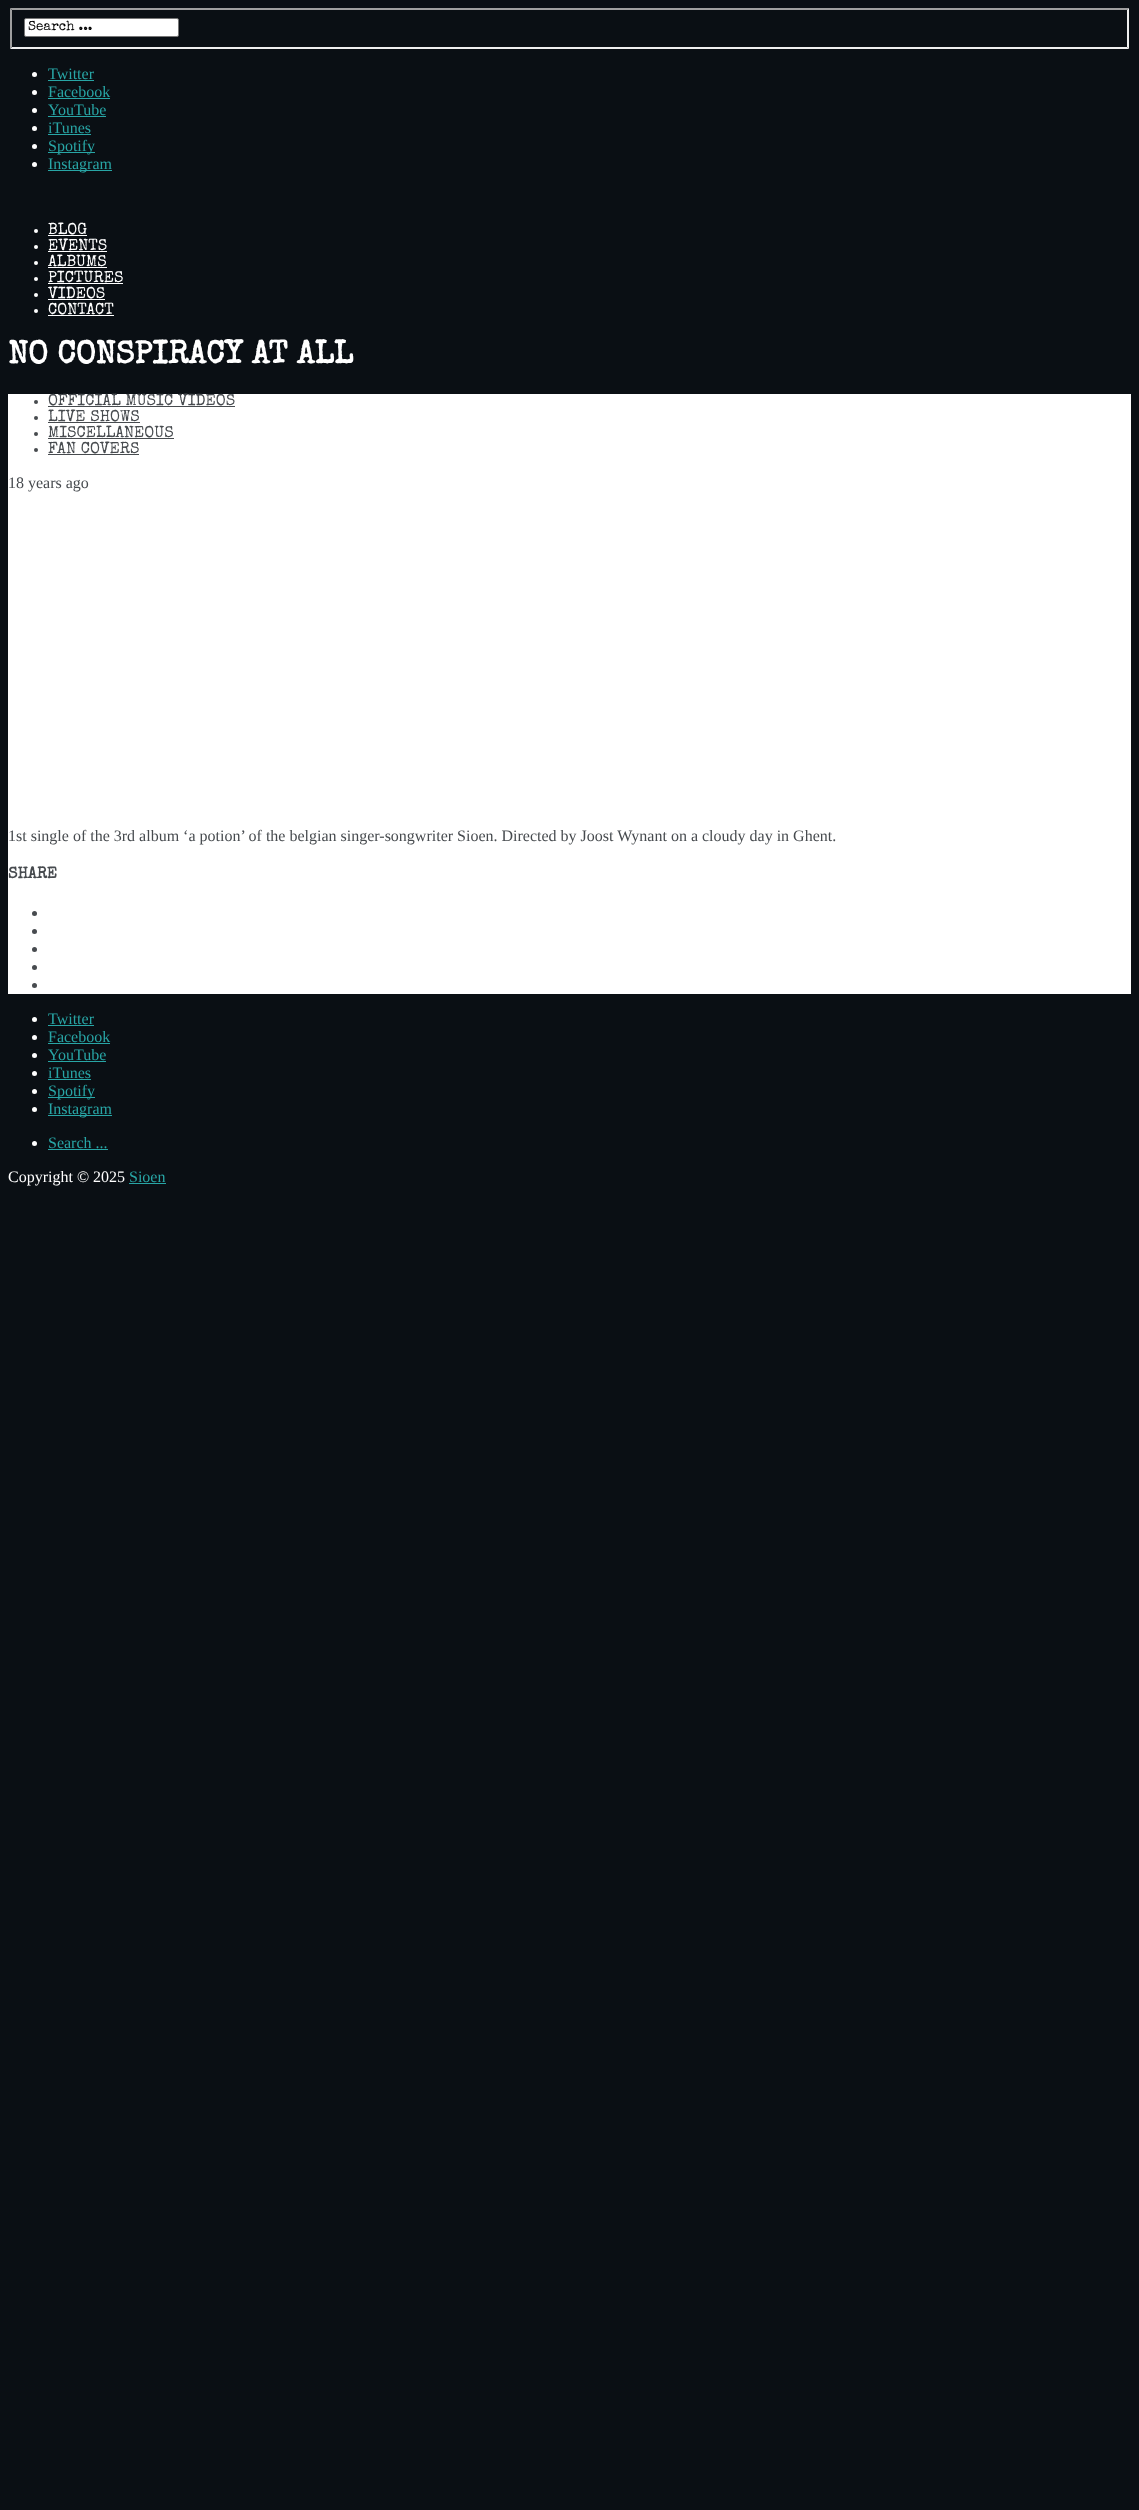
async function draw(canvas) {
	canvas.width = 1139;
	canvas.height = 2510;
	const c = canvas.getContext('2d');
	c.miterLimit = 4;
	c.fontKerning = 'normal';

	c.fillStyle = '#0a0f14';
	c.fillRect(0, 0, 1139, 2510);
	c.fillStyle = '#9f9f9f';
	c.beginPath();
	c.moveTo(10, 8);
	c.lineTo(1129, 8);
	c.lineTo(1127, 10);
	c.lineTo(12, 10);
	c.closePath();
	c.fill();
	c.fillStyle = '#efefef';
	c.beginPath();
	c.moveTo(1129, 8);
	c.lineTo(1129, 49);
	c.lineTo(1127, 47);
	c.lineTo(1127, 10);
	c.closePath();
	c.fill();
	c.beginPath();
	c.moveTo(1129, 49);
	c.lineTo(10, 49);
	c.lineTo(12, 47);
	c.lineTo(1127, 47);
	c.closePath();
	c.fill();
	c.fillStyle = '#9f9f9f';
	c.beginPath();
	c.moveTo(10, 49);
	c.lineTo(10, 8);
	c.lineTo(12, 10);
	c.lineTo(12, 47);
	c.closePath();
	c.fill();
	c.fillStyle = '#fff';
	c.beginPath();
	c.roundRect(24.5, 18.5, 154, 18, 1.5);
	c.fill();
	c.strokeStyle = '#767676';
	c.stroke();
	c.font = '13.5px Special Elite';
	c.fillStyle = '#000';
	c.fillText('Search ...', 28, 30);
	c.fillStyle = '#fff';
	c.beginPath();
	c.arc(34.5, 74.5, 2.5, 0, 2 * Math.PI);
	c.fill();
	c.font = '16px Liberation Serif';
	c.fillStyle = '#28a5a5';
	c.fillText('Twitter', 48, 79);
	c.fillRect(48, 80, 46, 1);
	c.fillStyle = '#fff';
	c.beginPath();
	c.arc(34.5, 92.5, 2.5, 0, 2 * Math.PI);
	c.fill();
	c.fillStyle = '#28a5a5';
	c.fillText('Facebook', 48, 97);
	c.fillRect(48, 98, 62, 1);
	c.fillStyle = '#fff';
	c.beginPath();
	c.arc(34.5, 110.5, 2.5, 0, 2 * Math.PI);
	c.fill();
	c.fillStyle = '#28a5a5';
	c.fillText('YouTube', 48, 115);
	c.fillRect(48, 116, 58, 1);
	c.fillStyle = '#fff';
	c.beginPath();
	c.arc(34.5, 128.5, 2.5, 0, 2 * Math.PI);
	c.fill();
	c.fillStyle = '#28a5a5';
	c.fillText('iTunes', 48, 133);
	c.fillRect(48, 134, 43, 1);
	c.fillStyle = '#fff';
	c.beginPath();
	c.arc(34.5, 146.5, 2.5, 0, 2 * Math.PI);
	c.fill();
	c.fillStyle = '#28a5a5';
	c.fillRect(48, 152, 47, 1);
	c.fillText('Spotify', 48, 151);
	c.fillStyle = '#fff';
	c.beginPath();
	c.arc(34.5, 164.5, 2.5, 0, 2 * Math.PI);
	c.fill();
	c.fillStyle = '#28a5a5';
	c.fillRect(48, 170, 64, 1);
	c.fillText('Instagram', 48, 169);
	c.fillStyle = '#fff';
	c.beginPath();
	c.arc(36, 231, 2, 0, 2 * Math.PI);
	c.fill();
	c.font = '16px Special Elite';
	c.fillText('BLOG', 48, 234);
	c.fillRect(48, 235, 39, 1);
	c.beginPath();
	c.arc(36, 247, 2, 0, 2 * Math.PI);
	c.fill();
	c.fillText('EVENTS', 48, 250);
	c.fillRect(48, 251, 59, 1);
	c.beginPath();
	c.arc(36, 263, 2, 0, 2 * Math.PI);
	c.fill();
	c.fillText('ALBUMS', 48, 266);
	c.fillRect(48, 267, 59, 1);
	c.beginPath();
	c.arc(36, 279, 2, 0, 2 * Math.PI);
	c.fill();
	c.fillText('PICTURES', 48, 282);
	c.fillRect(48, 283, 75, 1);
	c.beginPath();
	c.arc(36, 295, 2, 0, 2 * Math.PI);
	c.fill();
	c.fillText('VIDEOS', 48, 298);
	c.fillRect(48, 299, 57, 1);
	c.beginPath();
	c.arc(36, 311, 2, 0, 2 * Math.PI);
	c.fill();
	c.fillText('CONTACT', 48, 314);
	c.fillRect(48, 315, 66, 1);
	c.font = 'bold 32px Special Elite';
	c.fillText('NO CONSPIRACY AT ALL', 8, 363);
	c.fillRect(8, 394, 1123, 600);
	c.fillStyle = '#474b4f';
	c.beginPath();
	c.arc(36, 402, 2, 0, 2 * Math.PI);
	c.fill();
	c.font = '16px Special Elite';
	c.fillText('OFFICIAL MUSIC VIDEOS', 48, 405);
	c.fillRect(48, 406, 187, 1);
	c.beginPath();
	c.arc(36, 418, 2, 0, 2 * Math.PI);
	c.fill();
	c.fillText('LIVE SHOWS', 48, 421);
	c.fillRect(48, 422, 92, 1);
	c.beginPath();
	c.arc(36, 434, 2, 0, 2 * Math.PI);
	c.fill();
	c.fillText('MISCELLANEOUS', 48, 437);
	c.fillRect(48, 438, 126, 1);
	c.beginPath();
	c.arc(36, 450, 2, 0, 2 * Math.PI);
	c.fill();
	c.fillText('FAN COVERS', 48, 453);
	c.fillRect(48, 454, 91, 1);
	c.font = '16px Liberation Serif';
	c.fillText('18 years ago', 8, 488);
	c.fillText('1st single of the 3rd album ‘a potion’ of the belgian singer-songwriter Sioen. Directed by Joost Wynant on a cloudy day in Ghent.', 8, 841);
	c.font = 'bold 16px Special Elite';
	c.fillText('SHARE', 8, 878);
	c.beginPath();
	c.arc(34.5, 913.5, 2.5, 0, 2 * Math.PI);
	c.fill();
	c.beginPath();
	c.arc(34.5, 931.5, 2.5, 0, 2 * Math.PI);
	c.fill();
	c.beginPath();
	c.arc(34.5, 949.5, 2.5, 0, 2 * Math.PI);
	c.fill();
	c.beginPath();
	c.arc(34.5, 967.5, 2.5, 0, 2 * Math.PI);
	c.fill();
	c.beginPath();
	c.arc(34.5, 985.5, 2.5, 0, 2 * Math.PI);
	c.fill();
	c.fillStyle = '#fff';
	c.beginPath();
	c.arc(34.5, 1019.5, 2.5, 0, 2 * Math.PI);
	c.fill();
	c.font = '16px Liberation Serif';
	c.fillStyle = '#28a5a5';
	c.fillText('Twitter', 48, 1024);
	c.fillRect(48, 1025, 46, 1);
	c.fillStyle = '#fff';
	c.beginPath();
	c.arc(34.5, 1037.5, 2.5, 0, 2 * Math.PI);
	c.fill();
	c.fillStyle = '#28a5a5';
	c.fillText('Facebook', 48, 1042);
	c.fillRect(48, 1043, 62, 1);
	c.fillStyle = '#fff';
	c.beginPath();
	c.arc(34.5, 1055.5, 2.5, 0, 2 * Math.PI);
	c.fill();
	c.fillStyle = '#28a5a5';
	c.fillText('YouTube', 48, 1060);
	c.fillRect(48, 1061, 58, 1);
	c.fillStyle = '#fff';
	c.beginPath();
	c.arc(34.5, 1073.5, 2.5, 0, 2 * Math.PI);
	c.fill();
	c.fillStyle = '#28a5a5';
	c.fillText('iTunes', 48, 1078);
	c.fillRect(48, 1079, 43, 1);
	c.fillStyle = '#fff';
	c.beginPath();
	c.arc(34.5, 1091.5, 2.5, 0, 2 * Math.PI);
	c.fill();
	c.fillStyle = '#28a5a5';
	c.fillRect(48, 1097, 47, 1);
	c.fillText('Spotify', 48, 1096);
	c.fillStyle = '#fff';
	c.beginPath();
	c.arc(34.5, 1109.5, 2.5, 0, 2 * Math.PI);
	c.fill();
	c.fillStyle = '#28a5a5';
	c.fillRect(48, 1115, 64, 1);
	c.fillText('Instagram', 48, 1114);
	c.fillStyle = '#fff';
	c.beginPath();
	c.arc(34.5, 1143.5, 2.5, 0, 2 * Math.PI);
	c.fill();
	c.fillStyle = '#28a5a5';
	c.fillText('Search ...', 48, 1148);
	c.fillRect(48, 1149, 60, 1);
	c.fillStyle = '#fff';
	c.fillText('Copyright © 2025', 8, 1182);
	c.fillStyle = '#28a5a5';
	c.fillText('Sioen', 129, 1182);
	c.fillRect(129, 1183, 37, 1);
}

draw(document.querySelector('canvas'));
